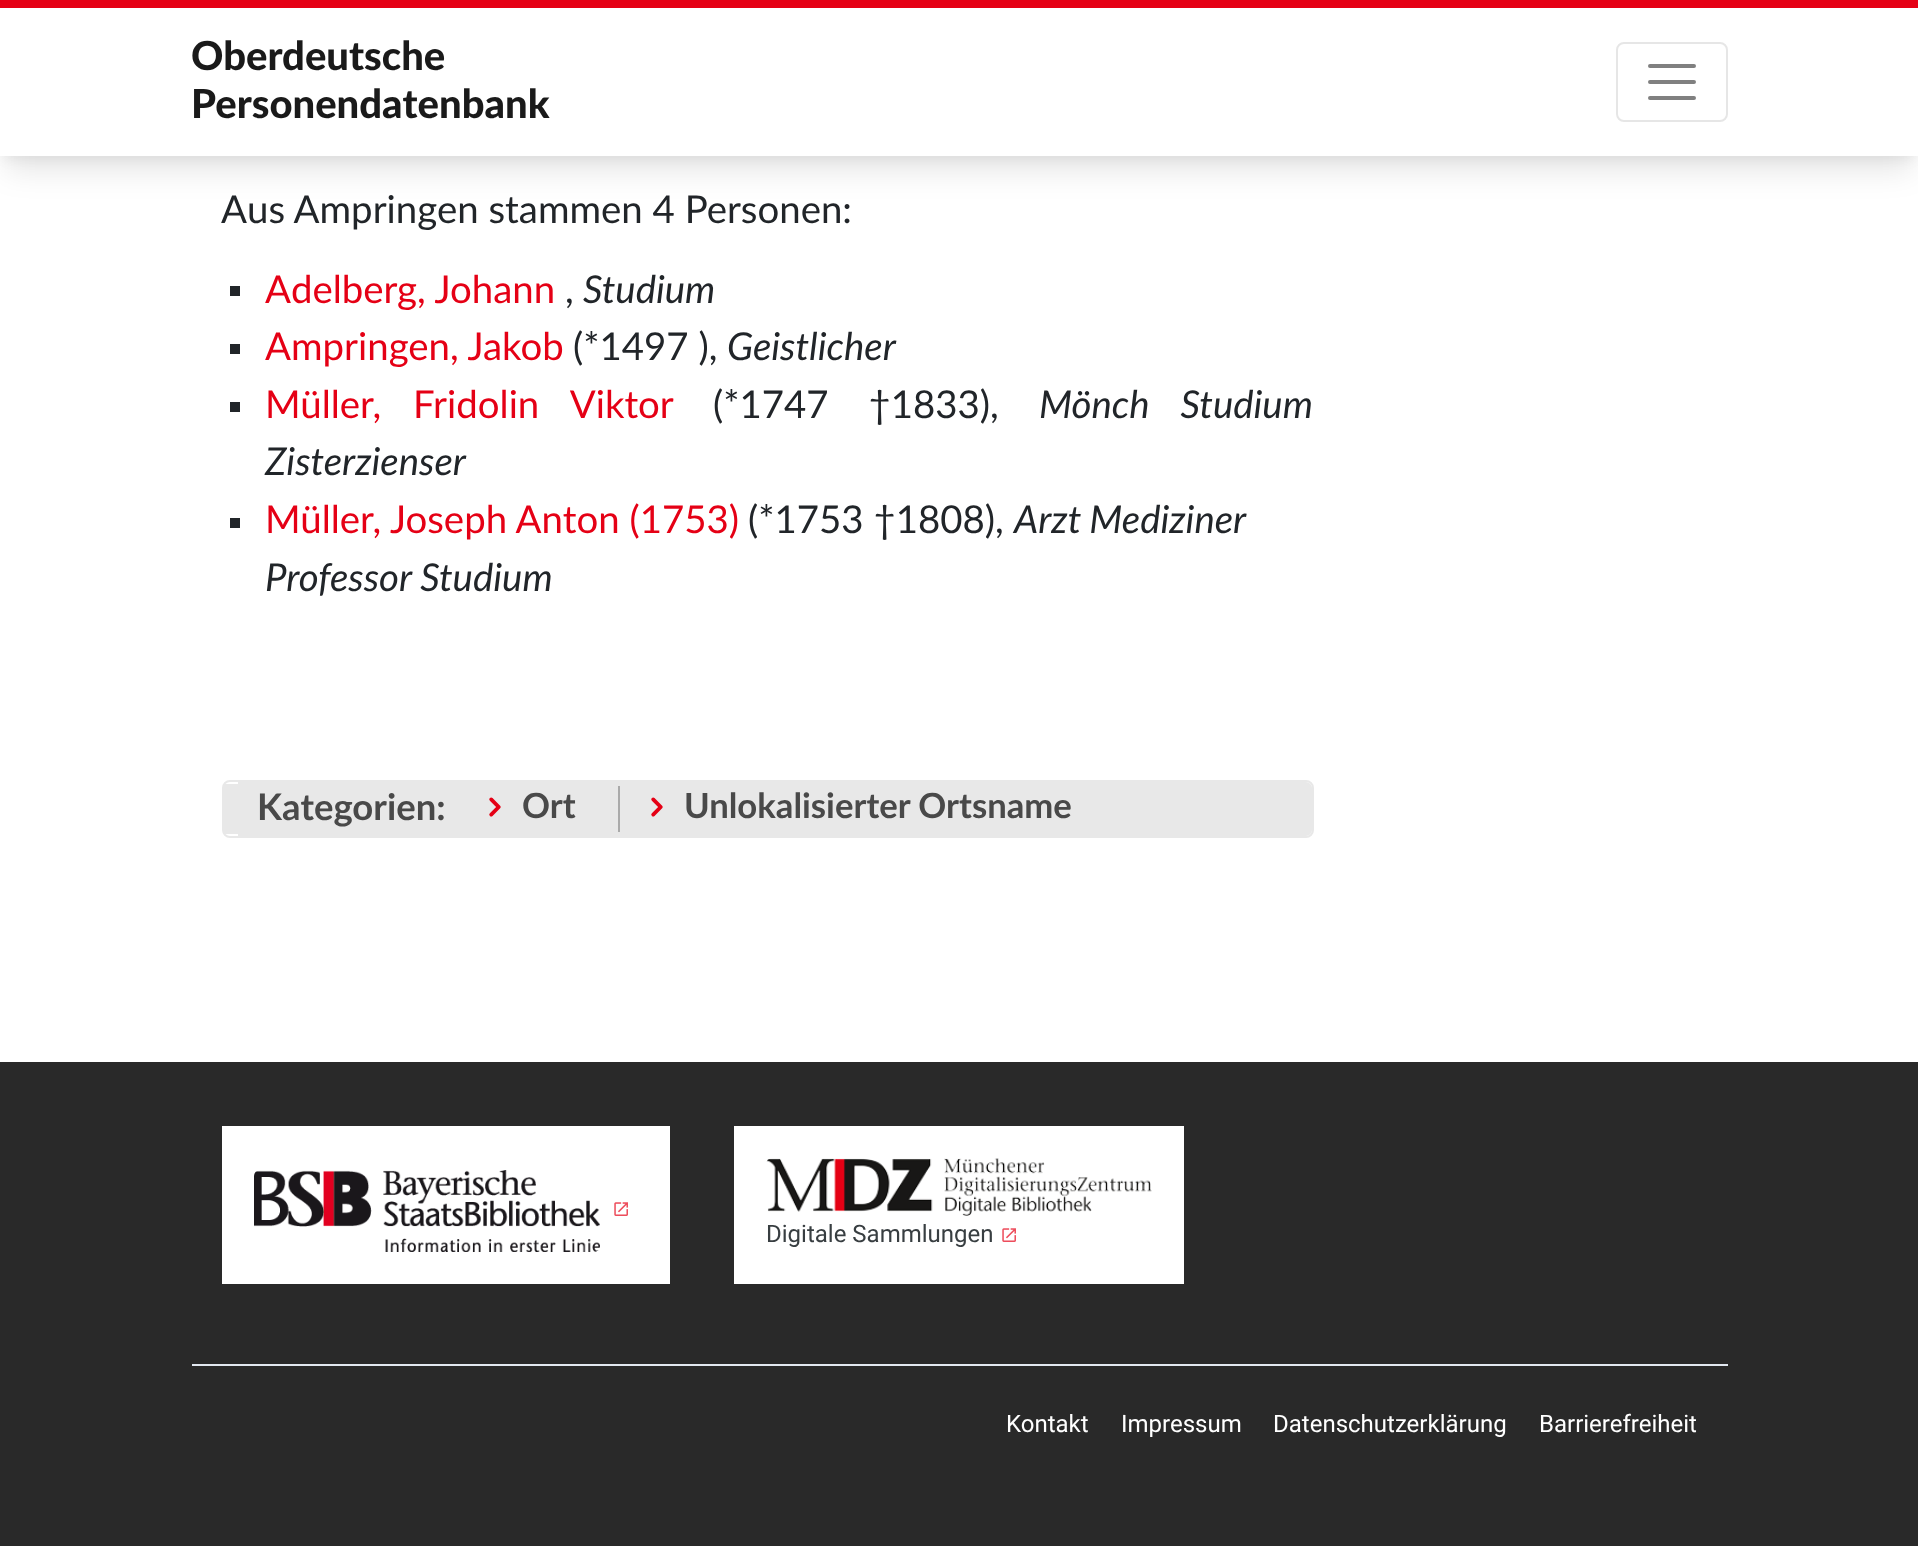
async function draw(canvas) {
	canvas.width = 1918;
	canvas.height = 1551;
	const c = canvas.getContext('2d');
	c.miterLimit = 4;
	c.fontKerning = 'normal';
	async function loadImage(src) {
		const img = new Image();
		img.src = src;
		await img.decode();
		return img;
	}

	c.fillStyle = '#fff';
	c.fillRect(0, 0, 1918, 1551);
	c.fillStyle = '#0000000d';
	c.filter = 'blur(6px)';
	c.beginPath();
	c.rect(4, 12, 1910, 148);
	c.fill();
	c.filter = 'none';
	c.fillStyle = '#0000001a';
	c.filter = 'blur(15px)';
	c.beginPath();
	c.rect(6, 26, 1906, 144);
	c.fill();
	c.filter = 'none';
	c.fillStyle = '#fff';
	c.fillRect(0, 8, 1918, 148);
	c.fillStyle = '#e50015';
	c.fillRect(0, 0, 1918, 8);
	c.font = '900 40px Lato';
	c.fillStyle = '#1a1a1a';
	c.fillText('Oberdeutsche', 191, 70);
	c.fillText('Personendatenbank', 191, 118);
	c.beginPath();
	c.roundRect(1617, 43, 110, 78, 7);
	c.strokeStyle = '#e6e6e6';
	c.lineWidth = 2;
	c.stroke();
	c.beginPath();
	c.moveTo(1650, 66);
	c.lineTo(1694, 66);
	c.moveTo(1650, 82);
	c.lineTo(1694, 82);
	c.moveTo(1650, 98);
	c.lineTo(1694, 98);
	c.strokeStyle = '#808080';
	c.lineWidth = 4;
	c.lineCap = 'round';
	c.stroke();
	c.font = '38.4px Lato';
	c.fillStyle = '#212529';
	c.fillText('Aus Ampringen stammen 4 Personen:', 221, 223);
	c.fillRect(230, 286, 10, 10);
	c.fillStyle = '#e50015';
	c.fillText('Adelberg, Johann', 265, 303);
	c.fillStyle = '#212529';
	c.fillText(',', 565, 303);
	c.font = 'italic 38.4px Lato';
	c.fillText('Studium', 583, 303);
	c.fillRect(230, 344, 10, 10);
	c.font = '38.4px Lato';
	c.fillStyle = '#e50015';
	c.fillText('Ampringen, Jakob', 265, 360);
	c.fillStyle = '#212529';
	c.fillText('(*1497 ),', 573, 360);
	c.font = 'italic 38.4px Lato';
	c.fillText('Geistlicher', 727, 360);
	c.fillRect(230, 402, 10, 10);
	c.wordSpacing = '22px';
	c.font = '38.4px Lato';
	c.fillStyle = '#e50015';
	c.fillText('Müller, Fridolin Viktor', 265, 418);
	c.wordSpacing = '30px';
	c.fillStyle = '#212529';
	c.fillText('(*1747 †1833),', 713, 418);
	c.wordSpacing = '22px';
	c.font = 'italic 38.4px Lato';
	c.fillText('Mönch Studium', 1039, 418);
	c.wordSpacing = '0px';
	c.fillText('Zisterzienser', 265, 475);
	c.fillRect(230, 518, 10, 10);
	c.font = '38.4px Lato';
	c.fillStyle = '#e50015';
	c.fillText('Müller, Joseph Anton (1753)', 265, 533);
	c.fillStyle = '#212529';
	c.fillText('(*1753 †1808),', 748, 533);
	c.wordSpacing = '-1px';
	c.font = 'italic 38.4px Lato';
	c.fillText('Arzt Mediziner', 1014, 533);
	c.wordSpacing = '0px';
	c.fillText('Professor Studium', 265, 591);
	c.fillStyle = '#e8e8e8';
	c.beginPath();
	c.moveTo(238, 782);
	c.lineTo(1306, 782);
	c.bezierCurveTo(1309, 782, 1312, 785, 1312, 788);
	c.lineTo(1312, 830);
	c.bezierCurveTo(1312, 833, 1309, 836, 1306, 836);
	c.lineTo(238, 836);
	c.closePath();
	c.fill();
	c.beginPath();
	c.roundRect(223, 781, 1090, 56, 7);
	c.strokeStyle = '#e8e8e8';
	c.lineWidth = 2;
	c.stroke();
	c.fillRect(224, 784, 14, 50);
	c.font = 'bold 36.5px Lato';
	c.fillStyle = '#494949';
	c.fillText('Kategorien:', 257, 820);
	c.drawImage(await loadImage('img1.png'), 489, 797, 12, 20);
	c.font = 'bold 34.7px Lato';
	c.fillText('Ort', 522, 818);
	c.fillStyle = '#aaa';
	c.fillRect(618, 786, 2, 46);
	c.drawImage(await loadImage('img1.png'), 651, 797, 12, 20);
	c.fillStyle = '#494949';
	c.fillText('Unlokalisierter Ortsname', 684, 818);
	c.fillStyle = '#292929';
	c.fillRect(0, 1062, 1918, 484);
	c.fillStyle = '#fff';
	c.fillRect(222, 1126, 448, 158);
	c.drawImage(await loadImage('img2.png'), 254, 1170, 346, 82);
	c.drawImage(await loadImage('img3.png'), 614, 1202, 14, 14);
	c.fillRect(734, 1126, 450, 158);
	c.drawImage(await loadImage('img4.png'), 766, 1158, 386, 58);
	c.font = '24px Roboto';
	c.fillStyle = '#383e41';
	c.fillText('Digitale Sammlungen', 766, 1242);
	c.drawImage(await loadImage('img3.png'), 1002, 1228, 14, 14);
	c.fillStyle = '#e2e8f0';
	c.fillRect(192, 1364, 1536, 2);
	c.fillStyle = '#fff';
	for (const [text, x, y] of [
		['Kontakt', 1006, 1432],
		['Impressum', 1121, 1432],
		['Datenschutzerklärung', 1273, 1432],
		['Barrierefreiheit', 1539, 1432],
	]) {
		c.fillText(text, x, y);
	}
}

draw(document.querySelector('canvas'));
